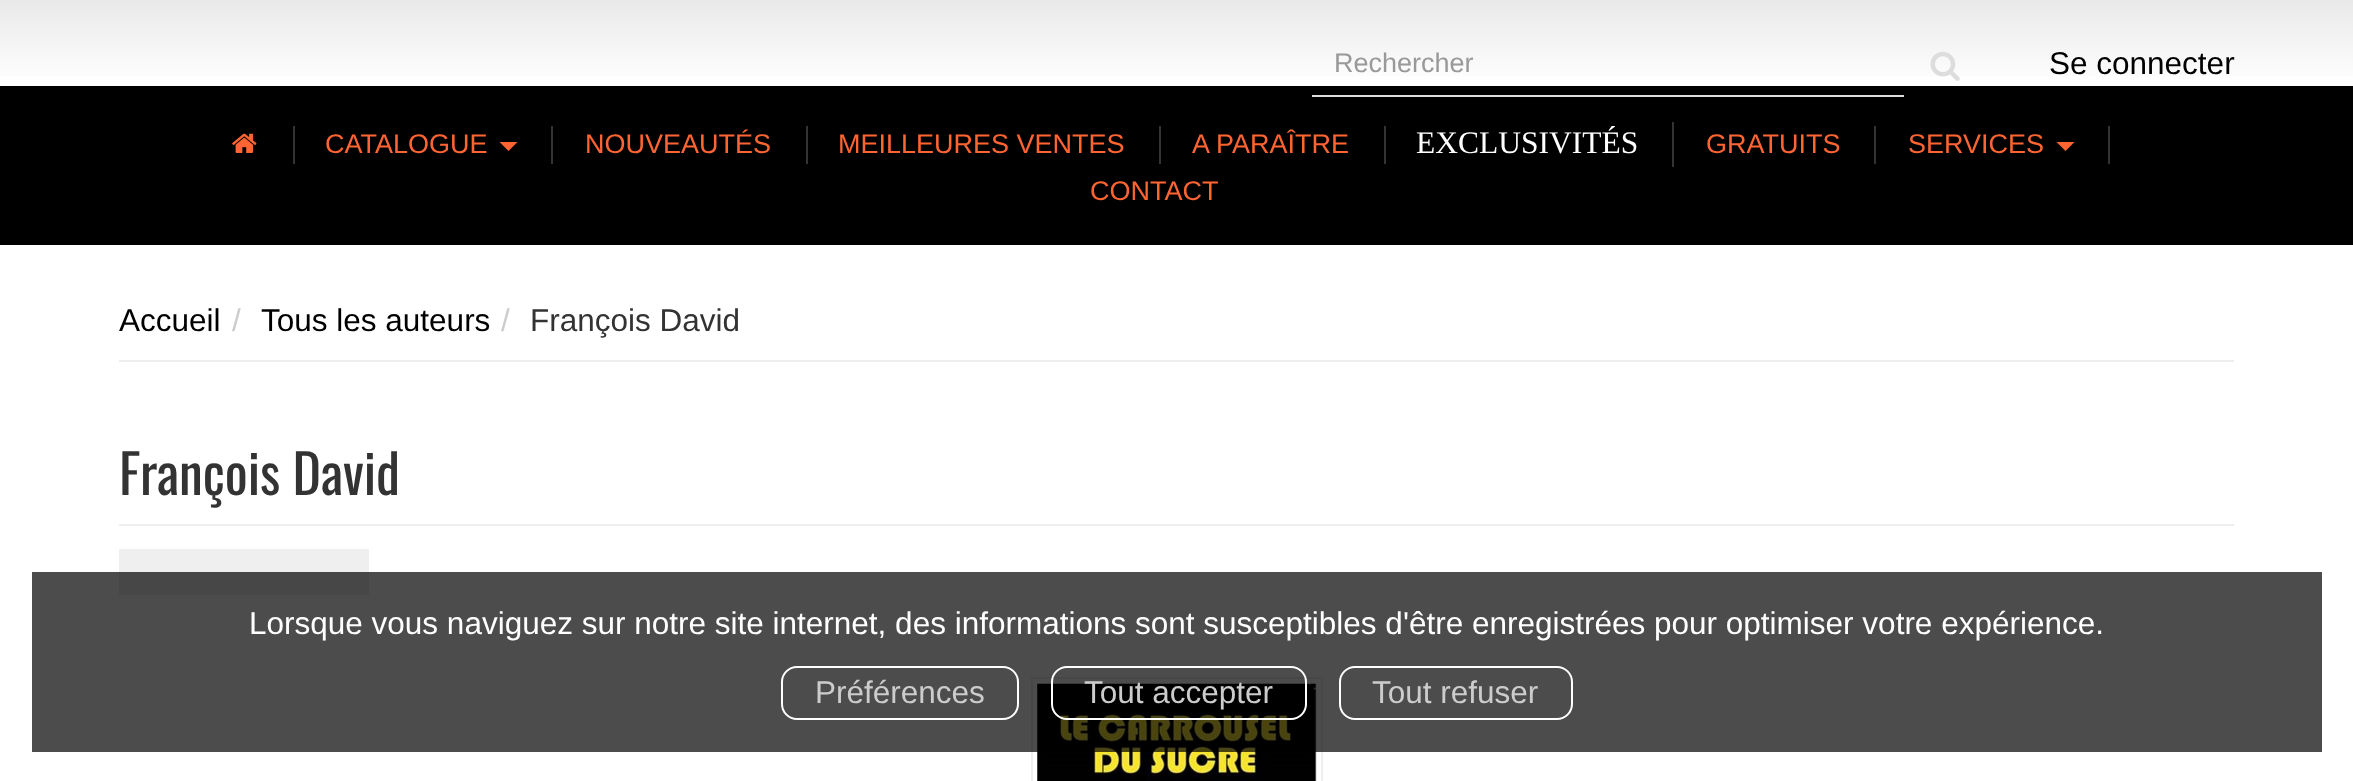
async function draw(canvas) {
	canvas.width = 2353;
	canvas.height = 781;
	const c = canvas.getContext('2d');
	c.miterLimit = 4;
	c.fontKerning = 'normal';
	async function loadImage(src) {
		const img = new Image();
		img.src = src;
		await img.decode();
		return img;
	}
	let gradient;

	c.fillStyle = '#fff';
	c.fillRect(0, 0, 2353, 781);
	gradient = c.createLinearGradient(1177, -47, 1177, 86);
	gradient.addColorStop(0, '#ddd');
	gradient.addColorStop(1, '#fff');
	c.fillStyle = gradient;
	c.fillRect(0, 0, 2353, 76);
	c.fillStyle = '#000';
	c.fillRect(0, 86, 2353, 159);
	c.fillStyle = '#ddd';
	c.fillRect(1312, 95, 592, 2);
	c.font = '27px Liberation Sans';
	c.fillStyle = '#999';
	c.fillText('Rechercher', 1334, 72);
	c.drawImage(await loadImage('img1.png'), 1930, 51, 30, 30);
	c.font = '31.5px Liberation Sans';
	c.fillStyle = '#000';
	c.fillText('Se connecter', 2049, 74);
	c.fillStyle = '#333';
	c.fillRect(293, 126, 2, 38);
	c.drawImage(await loadImage('img2.png'), 232, 133, 25, 20);
	c.fillRect(551, 126, 2, 38);
	c.font = '27px Liberation Sans';
	c.fillStyle = '#ff6532';
	c.fillText('CATALOGUE', 325, 153);
	c.beginPath();
	c.moveTo(499.5, 142);
	c.lineTo(517.5, 142);
	c.lineTo(508.5, 151);
	c.closePath();
	c.fill();
	c.fillStyle = '#333';
	c.fillRect(806, 126, 2, 38);
	c.fillStyle = '#ff6532';
	c.fillText('NOUVEAUTÉS', 585, 153);
	c.fillStyle = '#333';
	c.fillRect(1159, 126, 2, 38);
	c.fillStyle = '#ff6532';
	c.fillText('MEILLEURES VENTES', 838, 153);
	c.fillStyle = '#333';
	c.fillRect(1384, 126, 2, 38);
	c.fillStyle = '#ff6532';
	c.fillText('A PARAÎTRE', 1192, 153);
	c.fillStyle = '#333';
	c.fillRect(1672, 122, 2, 45);
	c.font = '31.5px Liberation Serif';
	c.fillStyle = '#fff';
	c.fillText('EXCLUSIVITÉS', 1416, 153);
	c.fillStyle = '#333';
	c.fillRect(1874, 126, 2, 38);
	c.font = '27px Liberation Sans';
	c.fillStyle = '#ff6532';
	c.fillText('GRATUITS', 1706, 153);
	c.fillStyle = '#333';
	c.fillRect(2108, 126, 2, 38);
	c.fillStyle = '#ff6532';
	c.fillText('SERVICES', 1908, 153);
	c.beginPath();
	c.moveTo(2056.5, 142);
	c.lineTo(2074.5, 142);
	c.lineTo(2065.5, 151);
	c.closePath();
	c.fill();
	c.fillText('CONTACT', 1090, 200);
	c.fillStyle = '#eee';
	c.fillRect(119, 360, 2115, 2);
	c.font = '31.5px Liberation Sans';
	c.fillStyle = '#000';
	c.fillText('Accueil', 119, 331);
	c.fillStyle = '#ccc';
	c.fillText('/', 232, 331);
	c.fillStyle = '#000';
	c.fillText('Tous les auteurs', 261, 331);
	c.fillStyle = '#ccc';
	c.fillText('/', 501, 331);
	c.fillStyle = '#333';
	c.fillText('François David', 530, 331);
	c.font = '54px Oswald';
	c.fillText('François David', 119, 495);
	for (const [x, y, w, h, color] of [
		[119, 524, 2115, 2, '#eee'],
		[119, 549, 250, 41, '#efefef'],
		[119, 590, 250, 5, '#eee'],
	]) {
		c.fillStyle = color;
		c.fillRect(x, y, w, h);
	}
	c.strokeStyle = '#eee';
	c.lineWidth = 2;
	c.strokeRect(1032, 678, 290, 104);
	c.drawImage(await loadImage('img3.png'), 1037, 683, 280, 98);
	c.fillStyle = '#000000b3';
	c.fillRect(32, 572, 2290, 180);
	c.font = '31.5px Liberation Sans';
	c.fillStyle = '#fff';
	c.fillText('Lorsque vous naviguez sur notre site internet, des informations sont susceptibles d\'être enregistrées pour optimiser votre expérience.', 249, 634);
	c.beginPath();
	c.roundRect(782, 667, 236, 52, 15);
	c.strokeStyle = '#fff';
	c.stroke();
	c.fillStyle = '#ccc';
	c.fillText('Préférences', 815, 703);
	c.beginPath();
	c.roundRect(1052, 667, 254, 52, 15);
	c.stroke();
	c.fillText('Tout accepter', 1084, 703);
	c.beginPath();
	c.roundRect(1340, 667, 232, 52, 15);
	c.stroke();
	c.fillText('Tout refuser', 1372, 703);
}

draw(document.querySelector('canvas'));
